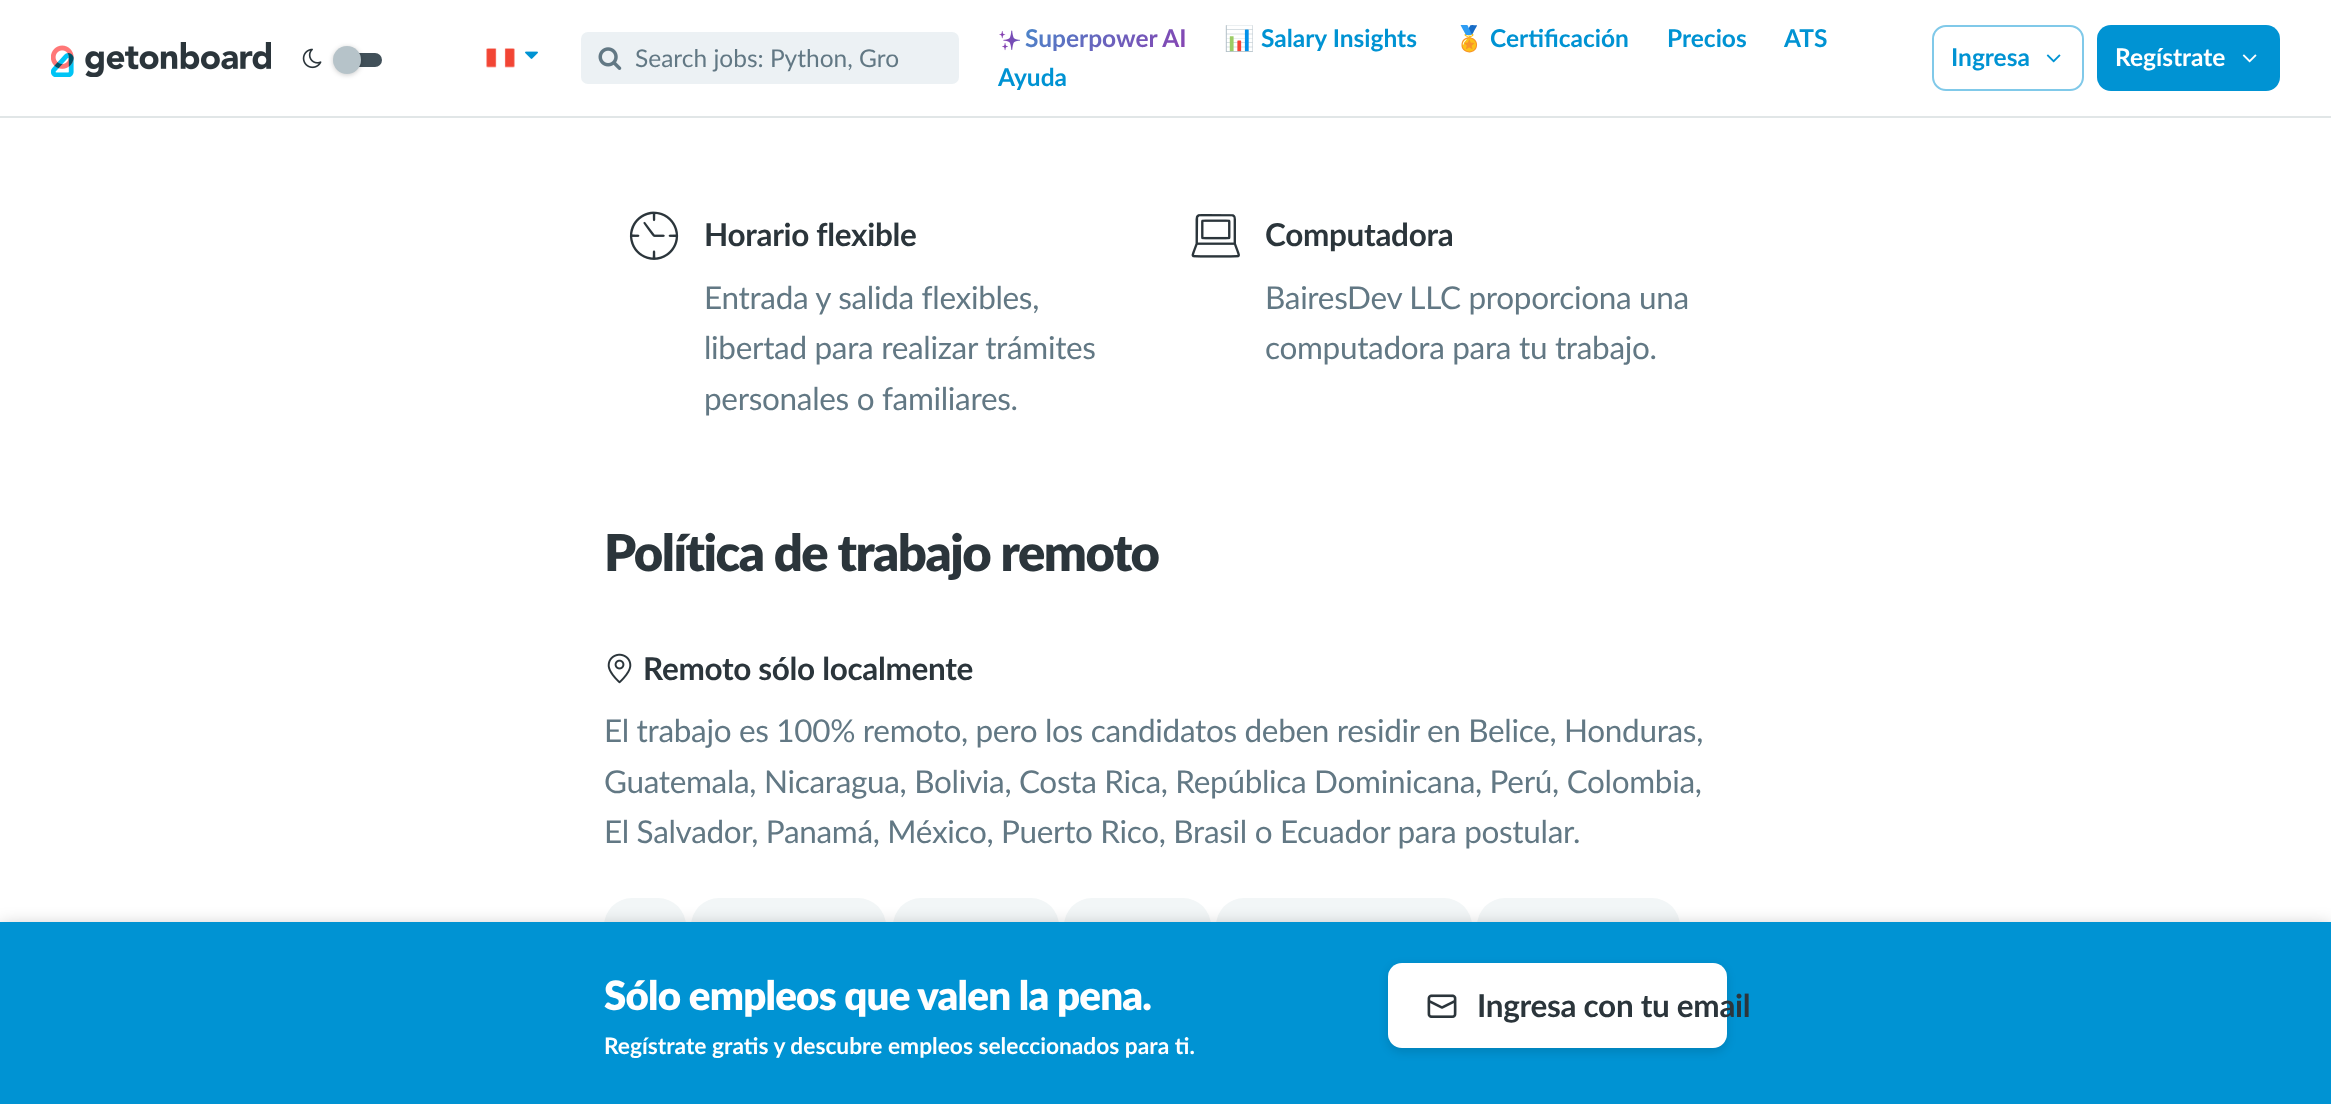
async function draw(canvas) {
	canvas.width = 2331;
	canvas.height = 1104;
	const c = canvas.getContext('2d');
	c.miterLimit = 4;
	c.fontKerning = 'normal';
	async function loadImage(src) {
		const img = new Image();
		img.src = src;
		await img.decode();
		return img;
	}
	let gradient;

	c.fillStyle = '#fff';
	c.fillRect(0, 0, 2331, 1104);
	c.fillStyle = '#e1e6e7';
	c.fillRect(0, 116, 2331, 2);
	c.drawImage(await loadImage('img1.png'), 51, 42, 220, 35);
	c.drawImage(await loadImage('img2.png'), 302, 48, 20, 21);
	c.fillStyle = '#415059';
	c.beginPath();
	c.roundRect(347, 53, 35, 14, 7);
	c.fill();
	c.fillStyle = '#00000033';
	c.filter = 'blur(2.5px)';
	c.beginPath();
	c.roundRect(333, 47, 28, 28, 14);
	c.fill();
	c.filter = 'none';
	c.fillStyle = '#b6c3c9';
	c.beginPath();
	c.arc(347, 60, 14, 0, 2 * Math.PI);
	c.fill();
	c.drawImage(await loadImage('img3.png'), 486, 48, 29, 20);
	c.drawImage(await loadImage('img4.png'), 525, 51, 13, 8);
	c.fillStyle = '#ecf1f4';
	c.beginPath();
	c.roundRect(581, 32, 378, 52, 7);
	c.fill();
	c.drawImage(await loadImage('img5.png'), 598, 47, 24, 23);
	c.font = '24.5px Lato';
	c.fillStyle = '#627884';
	c.fillText('Search jobs: Python, Gro', 635, 67);
	c.drawImage(await loadImage('img6.png'), 999, 30, 21, 21);
	c.font = 'bold 24.5px Lato';
	gradient = c.createLinearGradient(1038, -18, 1147, 92);
	gradient.addColorStop(0, '#4091cd');
	gradient.addColorStop(1, '#8842b2');
	c.fillStyle = gradient;
	c.fillText('Superpower AI', 1025, 47);
	c.font = 'bold 24.5px Noto Color Emoji';
	c.fillStyle = '#0093d3';
	c.fillText('📊', 1224, 47);
	c.font = 'bold 24.5px Lato';
	c.fillText('Salary Insights', 1261, 47);
	c.font = 'bold 24.5px Noto Color Emoji';
	c.fillText('🏅', 1454, 47);
	c.font = 'bold 24.5px Lato';
	for (const [text, x, y] of [
		['Certificación', 1490, 47],
		['Precios', 1667, 47],
		['ATS', 1784, 47],
		['Ayuda', 998, 86],
	]) {
		c.fillText(text, x, y);
	}
	c.beginPath();
	c.roundRect(1933, 26, 150, 64, 13);
	c.strokeStyle = '#80c9e9';
	c.lineWidth = 2;
	c.stroke();
	c.fillText('Ingresa', 1951, 66);
	c.drawImage(await loadImage('img7.png'), 2046, 54, 15, 9);
	c.beginPath();
	c.roundRect(2097, 25, 183, 66, 14);
	c.fill();
	c.fillStyle = '#fff';
	c.fillText('Regístrate', 2115, 66);
	c.drawImage(await loadImage('img8.png'), 2242, 54, 15, 9);
	c.drawImage(await loadImage('img9.png'), 629, 211, 50, 49);
	c.letterSpacing = '-0.32px';
	c.font = 'bold 31.5px Lato';
	c.fillStyle = '#2b353b';
	c.fillText('Horario flexible', 704, 246);
	c.font = '31.5px Lato';
	c.fillStyle = '#627884';
	for (const [text, x, y] of [
		['Entrada y salida flexibles,', 704, 309],
		['libertad para realizar trámites', 704, 359],
		['personales o familiares.', 704, 410],
	]) {
		c.fillText(text, x, y);
	}
	c.drawImage(await loadImage('img10.png'), 1191, 214, 49, 44);
	c.font = 'bold 31.5px Lato';
	c.fillStyle = '#2b353b';
	c.fillText('Computadora', 1265, 246);
	c.font = '31.5px Lato';
	c.fillStyle = '#627884';
	c.fillText('BairesDev LLC proporciona una', 1265, 309);
	c.fillText('computadora para tu trabajo.', 1265, 359);
	c.letterSpacing = '-1.5px';
	c.font = '900 50.75px Lato';
	c.fillStyle = '#2b353b';
	c.fillText('Política de trabajo remoto', 604, 571);
	c.drawImage(await loadImage('img11.png'), 607, 653, 25, 31);
	c.letterSpacing = '-0.32px';
	c.font = 'bold 31.5px Lato';
	c.fillText('Remoto sólo localmente', 643, 680);
	c.font = '31.5px Lato';
	c.fillStyle = '#627884';
	for (const [text, x, y] of [
		['El trabajo es 100% remoto, pero los candidatos deben residir en Belice, Honduras,', 604, 742],
		['Guatemala, Nicaragua, Bolivia, Costa Rica, República Dominicana, Perú, Colombia,', 604, 793],
		['El Salvador, Panamá, México, Puerto Rico, Brasil o Ecuador para postular.', 604, 843],
	]) {
		c.fillText(text, x, y);
	}
	c.fillStyle = '#f2f6f7';
	c.beginPath();
	c.roundRect(604, 898, 82, 56, 28);
	c.fill();
	c.beginPath();
	c.roundRect(691, 898, 195, 56, 28);
	c.fill();
	c.beginPath();
	c.roundRect(893, 898, 166, 56, 28);
	c.fill();
	c.beginPath();
	c.roundRect(1064, 898, 147, 56, 28);
	c.fill();
	c.beginPath();
	c.roundRect(1216, 898, 256, 56, 28);
	c.fill();
	c.beginPath();
	c.roundRect(1477, 898, 203, 56, 28);
	c.fill();
	c.fillStyle = '#00000040';
	c.filter = 'blur(9px)';
	c.beginPath();
	c.rect(0, 926, 2331, 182);
	c.fill();
	c.filter = 'none';
	c.fillStyle = '#0093d3';
	c.fillRect(0, 922, 2331, 182);
	c.letterSpacing = '-0.8px';
	c.font = '900 40.25px Lato';
	c.fillStyle = '#fff';
	c.fillText('Sólo empleos que valen la pena.', 604, 1010);
	c.letterSpacing = '0px';
	c.font = 'bold 22.75px Lato';
	c.fillText('Regístrate gratis y descubre empleos seleccionados para ti.', 604, 1054);
	c.fillStyle = '#0000001f';
	c.filter = 'blur(5px)';
	c.beginPath();
	c.roundRect(1388, 966, 339, 86, 14);
	c.fill();
	c.filter = 'none';
	c.fillStyle = '#fff';
	c.beginPath();
	c.roundRect(1388, 963, 339, 85, 14);
	c.fill();
	c.drawImage(await loadImage('img12.png'), 1427, 994, 30, 24);
	c.letterSpacing = '-0.32px';
	c.font = 'bold 31.5px Lato';
	c.fillStyle = '#2b353b';
	c.fillText('Ingresa con tu email', 1477, 1017);
}

draw(document.querySelector('canvas'));
